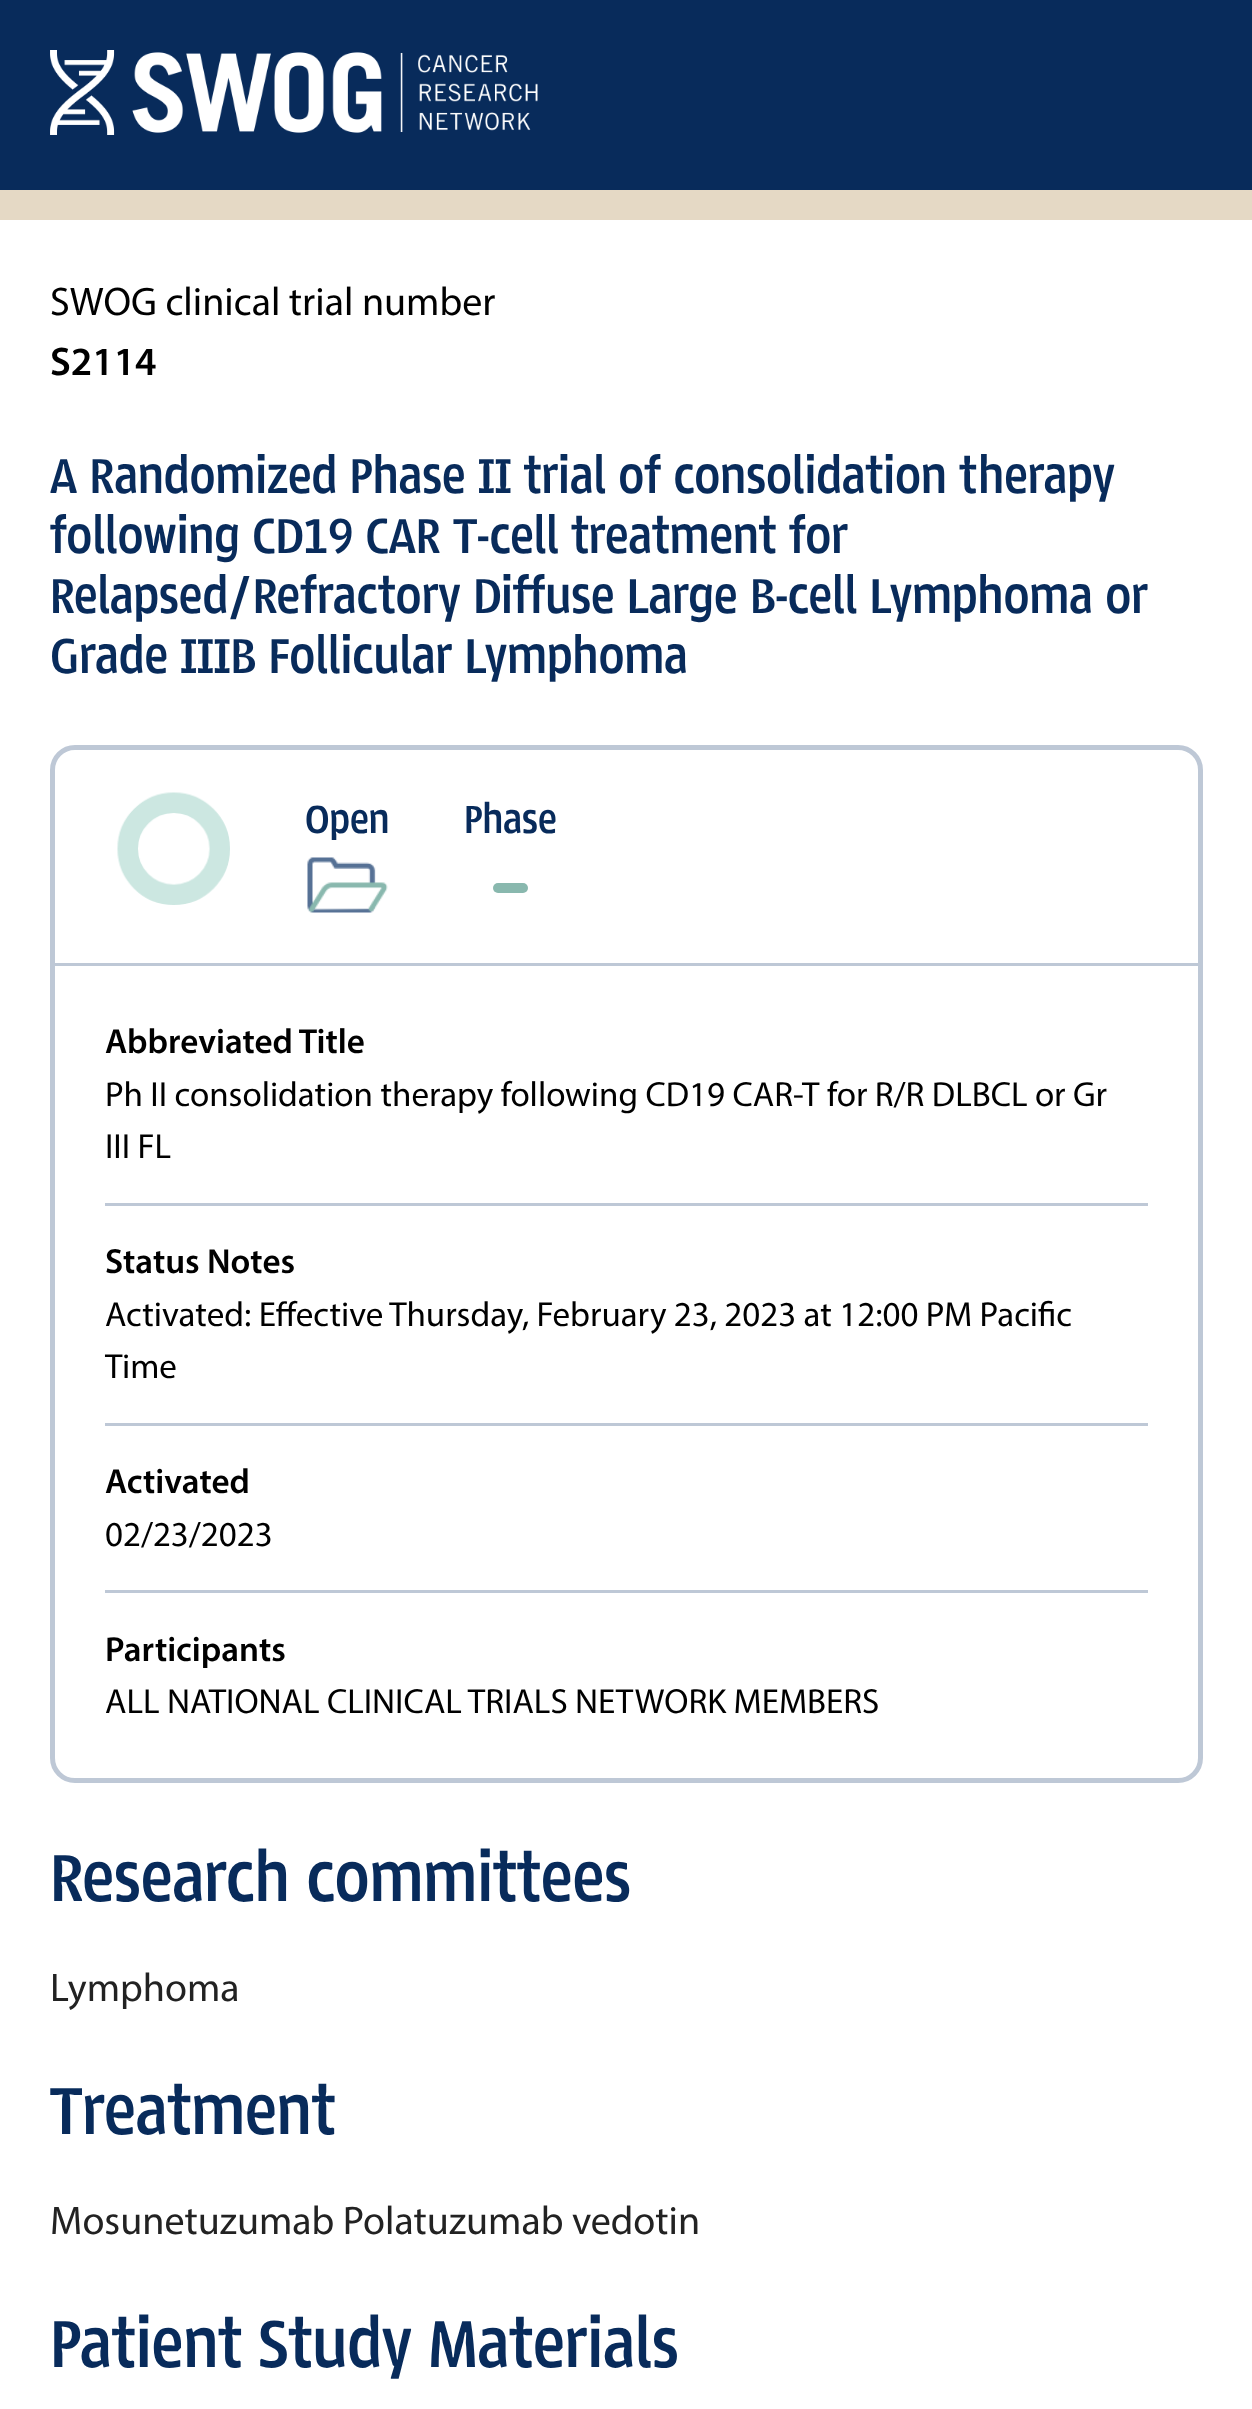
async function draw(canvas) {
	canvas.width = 1252;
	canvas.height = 2409;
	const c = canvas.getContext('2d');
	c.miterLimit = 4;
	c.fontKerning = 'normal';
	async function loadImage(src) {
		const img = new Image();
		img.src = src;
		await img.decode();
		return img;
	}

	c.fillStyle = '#fff';
	c.fillRect(0, 0, 1252, 2409);
	c.fillStyle = '#082b5b';
	c.fillRect(0, 0, 1252, 190);
	c.fillStyle = '#e5d9c5';
	c.fillRect(0, 190, 1252, 30);
	c.drawImage(await loadImage('img1.png'), 50, 50, 488, 85);
	c.font = '40px Myriad';
	c.fillStyle = '#000';
	c.fillText('SWOG clinical trial number', 50, 315);
	c.font = '600 40px Myriad';
	c.fillText('S2114', 50, 375);
	c.font = 'bold 50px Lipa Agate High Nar';
	c.fillStyle = '#082b5b';
	for (const [text, x, y] of [
		['A Randomized Phase II trial of consolidation therapy', 50, 493],
		['following CD19 CAR T-cell treatment for', 50, 553],
		['Relapsed/Refractory Diffuse Large B-cell Lymphoma or', 50, 613],
		['Grade IIIB Follicular Lymphoma', 50, 673],
	]) {
		c.fillText(text, x, y);
	}
	c.beginPath();
	c.roundRect(52.5, 747.5, 1148, 1033, 22.5);
	c.strokeStyle = '#bec8d6';
	c.lineWidth = 5;
	c.stroke();
	c.fillStyle = '#bec8d6';
	c.fillRect(55, 963, 1143, 3);
	c.drawImage(await loadImage('img2.png'), 117, 792, 113, 113);
	c.font = 'bold 40px Lipa Agate High Nar';
	c.fillStyle = '#082b5b';
	c.fillText('Open', 305, 833);
	c.drawImage(await loadImage('img3.png'), 307, 857, 81, 56);
	c.fillText('Phase', 464, 833);
	c.fillStyle = '#89b8ae';
	c.beginPath();
	c.roundRect(493, 883, 35, 10, 5);
	c.fill();
	c.fillStyle = '#bec8d6';
	c.fillRect(105, 1203, 1043, 3);
	c.font = '600 35px Myriad';
	c.fillStyle = '#000';
	c.fillText('Abbreviated Title', 105, 1053);
	c.font = '35px Myriad';
	c.fillText('Ph II consolidation therapy following CD19 CAR-T for R/R DLBCL or Gr', 105, 1106);
	c.fillText('III FL', 105, 1158);
	c.fillStyle = '#bec8d6';
	c.fillRect(105, 1423, 1043, 3);
	c.font = '600 35px Myriad';
	c.fillStyle = '#000';
	c.fillText('Status Notes', 105, 1273);
	c.font = '35px Myriad';
	c.fillText('Activated: Effective Thursday, February 23, 2023 at 12:00 PM Pacific', 105, 1326);
	c.fillText('Time', 105, 1378);
	c.fillStyle = '#bec8d6';
	c.fillRect(105, 1590, 1043, 3);
	c.font = '600 35px Myriad';
	c.fillStyle = '#000';
	c.fillText('Activated', 105, 1493);
	c.font = '35px Myriad';
	c.fillText('02/23/2023', 105, 1546);
	c.font = '600 35px Myriad';
	c.fillText('Participants', 105, 1661);
	c.font = '35px Myriad';
	c.fillText('ALL NATIONAL CLINICAL TRIALS NETWORK MEMBERS', 105, 1713);
	c.font = 'bold 67.5px Lipa Agate High Nar';
	c.fillStyle = '#082b5b';
	c.fillText('Research committees', 50, 1901);
	c.font = '40px Myriad';
	c.fillStyle = '#222';
	c.fillText('Lymphoma', 50, 2001);
	c.font = 'bold 67.5px Lipa Agate High Nar';
	c.fillStyle = '#082b5b';
	c.fillText('Treatment', 50, 2134);
	c.font = '40px Myriad';
	c.fillStyle = '#222';
	c.fillText('Mosunetuzumab Polatuzumab vedotin', 50, 2234);
	c.font = 'bold 67.5px Lipa Agate High Nar';
	c.fillStyle = '#082b5b';
	c.fillText('Patient Study Materials', 50, 2367);
}

draw(document.querySelector('canvas'));
